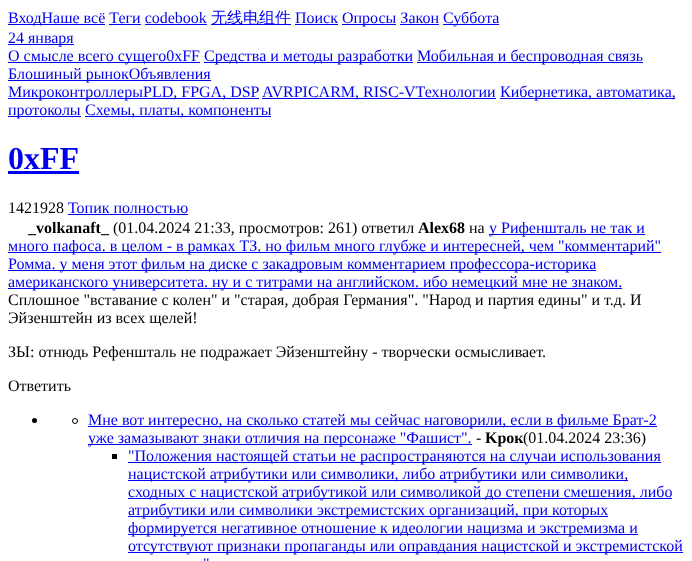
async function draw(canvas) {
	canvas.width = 692;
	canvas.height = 561;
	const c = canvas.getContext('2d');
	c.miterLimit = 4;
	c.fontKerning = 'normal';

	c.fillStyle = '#fff';
	c.fillRect(0, 0, 692, 561);
	c.fillStyle = '#00e';
	c.fillRect(8, 24, 97, 1);
	c.font = '16px Liberation Serif';
	c.fillText('ВходНаше всё Теги codebook', 8, 23);
	c.fillRect(211, 24, 80, 1);
	c.font = '500 16px WenQuanYi Zen Hei';
	c.fillText('无线电组件', 211, 23);
	c.font = '16px Liberation Serif';
	c.fillText('Поиск', 295, 23);
	c.fillRect(295, 24, 43, 1);
	c.fillRect(342, 24, 54, 1);
	c.fillText('Опросы Закон', 342, 23);
	c.fillRect(443, 24, 56, 1);
	c.fillText('Суббота', 443, 23);
	for (const [x, y, w, h, color] of [
		[109, 24, 32, 1, '#00e'],
		[145, 24, 62, 1, '#00e'],
		[400, 24, 39, 1, '#00e'],
		[8, 44, 66, 1, '#00e'],
	]) {
		c.fillStyle = color;
		c.fillRect(x, y, w, h);
	}
	c.fillText('24 января', 8, 43);
	c.fillRect(8, 62, 192, 1);
	c.fillText('О смысле всего сущего0xFF', 8, 61);
	c.fillRect(204, 62, 209, 1);
	c.fillText('Средства и методы разработки', 204, 61);
	c.fillRect(417, 62, 226, 1);
	c.fillText('Мобильная и беспроводная связь', 417, 61);
	c.fillRect(8, 80, 203, 1);
	c.fillText('Блошиный рынокОбъявления', 8, 79);
	c.fillRect(8, 98, 251, 1);
	c.fillText('Микроконтроллеры', 8, 97);
	c.fillText('PLD, FPGA, DSP', 143, 97);
	c.fillRect(262, 98, 153, 1);
	c.fillText('AVRPICARM, RISC-VТехнологии', 262, 97);
	c.fillRect(500, 98, 175, 1);
	c.fillText('Кибернетика, автоматика,', 500, 97);
	c.fillRect(415, 98, 81, 1);
	c.fillRect(8, 116, 73, 1);
	c.fillText('протоколы', 8, 115);
	c.fillRect(85, 116, 186, 1);
	c.fillText('Схемы, платы, компоненты', 85, 115);
	c.font = 'bold 32px Liberation Serif';
	c.fillText('0xFF', 8, 169);
	c.fillRect(8, 171, 71, 3);
	c.font = '16px Liberation Serif';
	c.fillStyle = '#000';
	c.fillText('1421928', 8, 213);
	c.fillStyle = '#00e';
	c.fillText('Топик полностью', 68, 213);
	c.fillRect(68, 214, 120, 1);
	c.font = 'bold 16px Liberation Serif';
	c.fillStyle = '#000';
	c.fillText('_volkanaft_', 28, 233);
	c.font = '16px Liberation Serif';
	c.fillText('(01.04.2024 21:33, просмотров: 261) ответил', 113, 233);
	c.font = 'bold 16px Liberation Serif';
	c.fillText('Alex68', 418, 233);
	c.font = '16px Liberation Serif';
	c.fillText('на', 469, 233);
	c.fillStyle = '#00e';
	c.fillRect(489, 234, 156, 1);
	c.fillText('у Рифеншталь не так и', 489, 233);
	c.fillRect(8, 252, 653, 1);
	c.fillText('много пафоса. в целом - в рамках ТЗ. но фильм много глубже и интересней, чем "комментарий"', 8, 251);
	c.fillRect(8, 270, 588, 1);
	c.fillText('Ромма. у меня этот фильм на диске с закадровым комментарием профессора-историка', 8, 269);
	c.fillRect(8, 288, 614, 1);
	c.fillText('американского университета. ну и с титрами на английском. ибо немецкий мне не знаком.', 8, 287);
	c.fillStyle = '#000';
	for (const [text, x, y] of [
		['Сплошное "вставание с колен" и "старая, добрая Германия". "Народ и партия едины" и т.д. И', 8, 305],
		['Эйзенштейн из всех щелей!', 8, 323],
		['ЗЫ: отнюдь Рефеншталь не подражает Эйзенштейну - творчески осмысливает.', 8, 357],
		['Ответить', 8, 391],
	]) {
		c.fillText(text, x, y);
	}
	c.beginPath();
	c.arc(34.5, 420.5, 2.5, 0, 2 * Math.PI);
	c.fill();
	c.beginPath();
	c.arc(75, 421, 2.5, 0, 2 * Math.PI);
	c.strokeStyle = '#000';
	c.stroke();
	c.fillStyle = '#00e';
	c.fillRect(88, 426, 569, 1);
	c.fillText('Мне вот интересно, на сколько статей мы сейчас наговорили, если в фильме Брат-2', 88, 425);
	c.fillRect(88, 444, 384, 1);
	c.fillText('уже замазывают знаки отличия на персонаже "Фашист".', 88, 443);
	c.fillStyle = '#000';
	c.fillText('-', 476, 443);
	c.font = 'bold 16px Liberation Serif';
	c.fillText('Kpoк', 485, 443);
	c.font = '16px Liberation Serif';
	c.fillText('(01.04.2024 23:36)', 523, 443);
	c.fillRect(112, 454, 5, 5);
	c.fillStyle = '#00e';
	c.fillRect(128, 462, 533, 1);
	c.fillText('"Положения настоящей статьи не распространяются на случаи использования', 128, 461);
	c.fillRect(128, 480, 500, 1);
	c.fillText('нацистской атрибутики или символики, либо атрибутики или символики,', 128, 479);
	c.fillRect(128, 498, 544, 1);
	c.fillText('сходных с нацистской атрибутикой или символикой до степени смешения, либо', 128, 497);
	c.fillRect(128, 516, 480, 1);
	c.fillText('атрибутики или символики экстремистских организаций, при которых', 128, 515);
	c.fillRect(128, 534, 510, 1);
	c.fillText('формируется негативное отношение к идеологии нацизма и экстремизма и', 128, 533);
	c.fillRect(128, 552, 555, 1);
	c.fillText('отсутствуют признаки пропаганды или оправдания нацистской и экстремистской', 128, 551);
	c.fillText('"', 203, 569);
}

draw(document.querySelector('canvas'));
